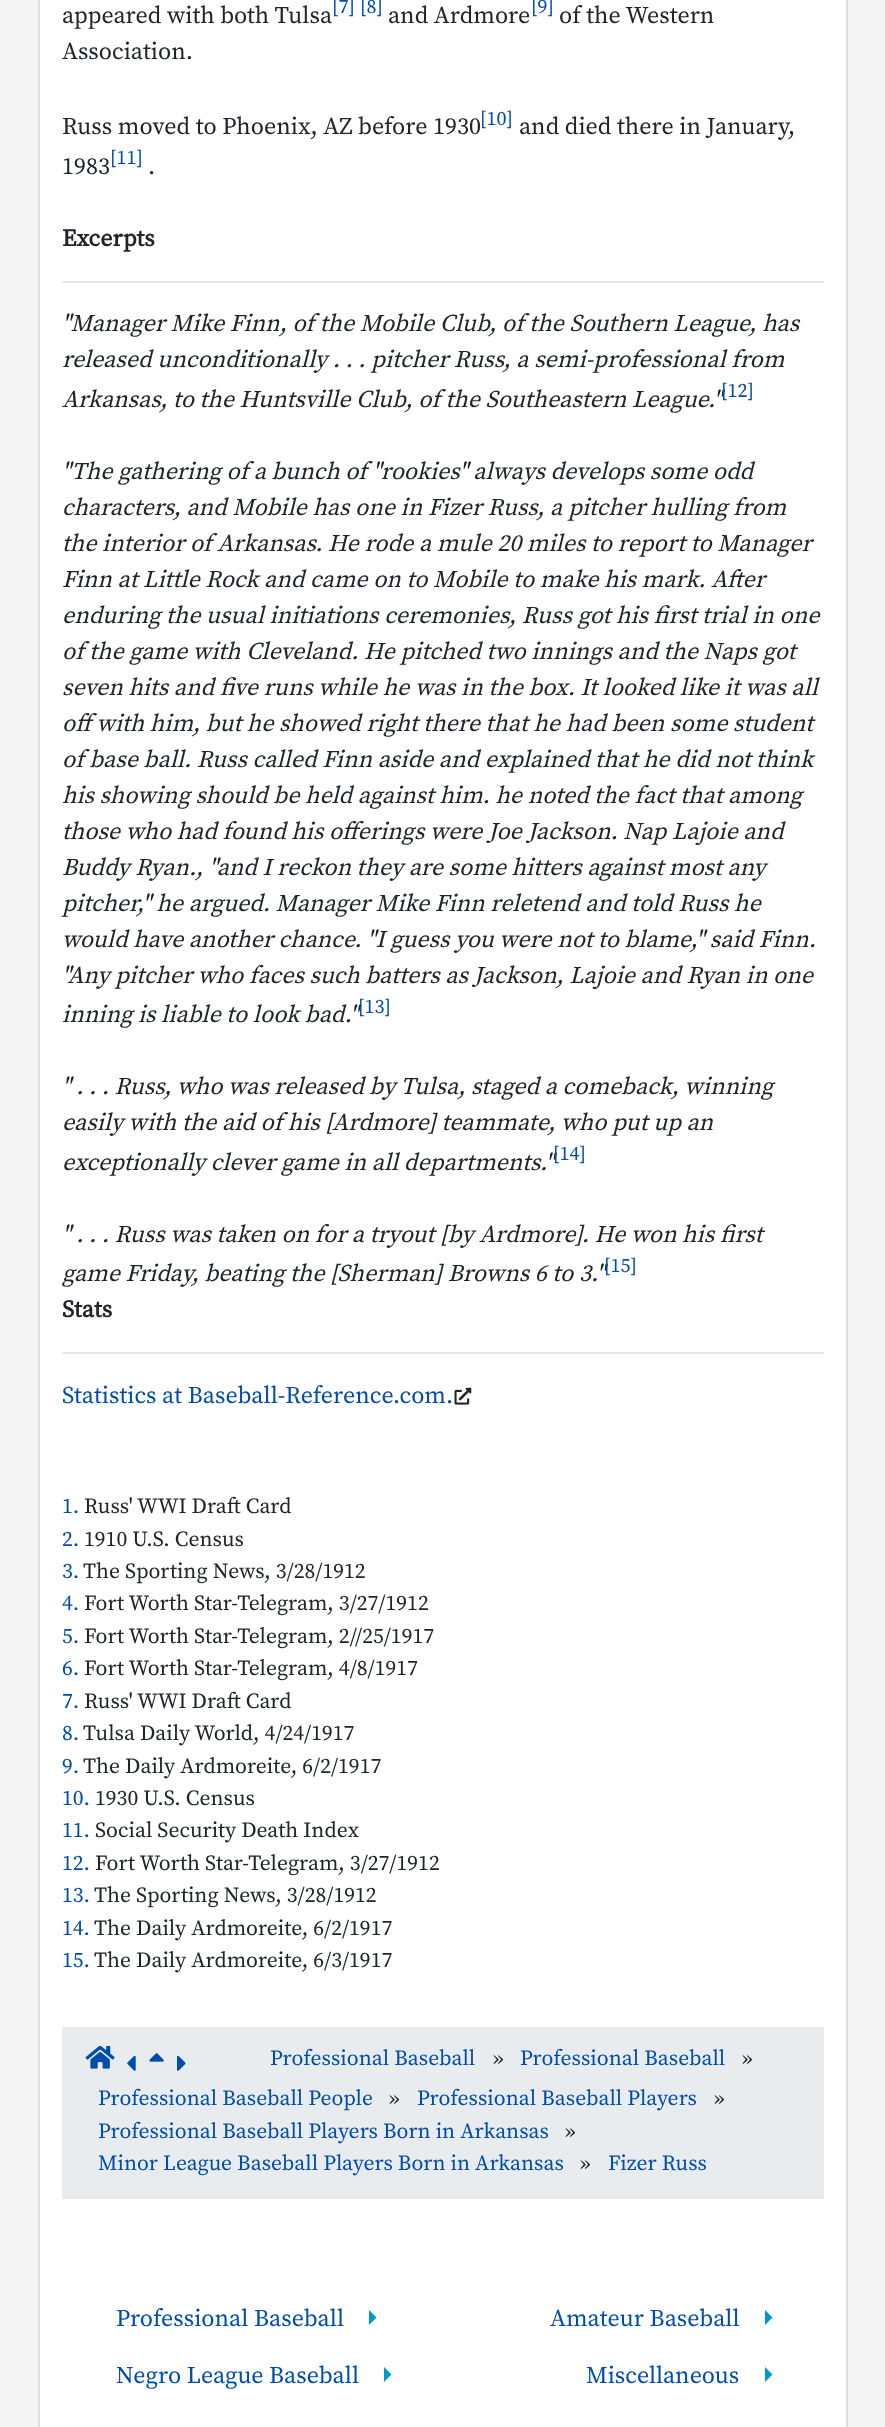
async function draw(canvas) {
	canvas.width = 885;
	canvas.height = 2427;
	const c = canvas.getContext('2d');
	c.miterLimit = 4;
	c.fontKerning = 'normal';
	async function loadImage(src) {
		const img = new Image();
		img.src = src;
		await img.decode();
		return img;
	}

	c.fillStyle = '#f4f4f4';
	c.fillRect(0, 0, 885, 2427);
	for (const [x, y, w, h, color] of [
		[40, 0, 806, 2427, '#fff'],
		[846, 0, 2, 2427, '#ddd'],
		[38, 0, 2, 2427, '#ddd'],
	]) {
		c.fillStyle = color;
		c.fillRect(x, y, w, h);
	}
	c.font = '24px Source Serif Pro';
	c.fillStyle = '#212529';
	c.fillText('appeared with both Tulsa', 62, 23);
	c.font = '20px Source Serif Pro';
	c.fillStyle = '#004dac';
	c.fillText('[7]', 332, 13);
	c.fillText('[8]', 360, 13);
	c.font = '24px Source Serif Pro';
	c.fillStyle = '#212529';
	c.fillText('and Ardmore', 388, 23);
	c.font = '20px Source Serif Pro';
	c.fillStyle = '#004dac';
	c.fillText('[9]', 531, 13);
	c.font = '24px Source Serif Pro';
	c.fillStyle = '#212529';
	for (const [text, x, y] of [
		['of the Western', 559, 23],
		['Association.', 62, 59],
		['Russ moved to Phoenix, AZ before 1930', 62, 134],
	]) {
		c.fillText(text, x, y);
	}
	c.font = '20px Source Serif Pro';
	c.fillStyle = '#004dac';
	c.fillText('[10]', 480, 125);
	c.font = '24px Source Serif Pro';
	c.fillStyle = '#212529';
	c.fillText('and died there in January,', 519, 134);
	c.fillText('1983', 62, 174);
	c.font = '20px Source Serif Pro';
	c.fillStyle = '#004dac';
	c.fillText('[11]', 110, 164);
	c.font = '24px Source Serif Pro';
	c.fillStyle = '#212529';
	c.fillText('.', 148, 174);
	c.font = 'bold 24px Source Serif Pro';
	c.fillText('Excerpts', 62, 246);
	c.fillStyle = '#e6e6e6';
	c.fillRect(62, 281, 762, 2);
	c.font = 'italic 24px Source Serif Pro';
	c.fillStyle = '#212529';
	for (const [text, x, y] of [
		['"Manager Mike Finn, of the Mobile Club, of the Southern League, has', 62, 331],
		['released unconditionally . . . pitcher Russ, a semi-professional from', 62, 367],
		['Arkansas, to the Huntsville Club, of the Southeastern League."', 62, 407],
	]) {
		c.fillText(text, x, y);
	}
	c.font = '20px Source Serif Pro';
	c.fillStyle = '#004dac';
	c.fillText('[12]', 721, 397);
	c.font = 'italic 24px Source Serif Pro';
	c.fillStyle = '#212529';
	for (const [text, x, y] of [
		['"The gathering of a bunch of "rookies" always develops some odd', 62, 479],
		['characters, and Mobile has one in Fizer Russ, a pitcher hulling from', 62, 515],
		['the interior of Arkansas. He rode a mule 20 miles to report to Manager', 62, 551],
		['Finn at Little Rock and came on to Mobile to make his mark. After', 62, 587],
		['enduring the usual initiations ceremonies, Russ got his first trial in one', 62, 623],
		['of the game with Cleveland. He pitched two innings and the Naps got', 62, 659],
		['seven hits and five runs while he was in the box. It looked like it was all', 62, 695],
		['off with him, but he showed right there that he had been some student', 62, 731],
		['of base ball. Russ called Finn aside and explained that he did not think', 62, 767],
		['his showing should be held against him. he noted the fact that among', 62, 803],
		['those who had found his offerings were Joe Jackson. Nap Lajoie and', 62, 839],
		['Buddy Ryan., "and I reckon they are some hitters against most any', 62, 875],
		['pitcher," he argued. Manager Mike Finn reletend and told Russ he', 62, 911],
		['would have another chance. "I guess you were not to blame," said Finn.', 62, 947],
		['"Any pitcher who faces such batters as Jackson, Lajoie and Ryan in one', 62, 983],
		['inning is liable to look bad."', 62, 1022],
	]) {
		c.fillText(text, x, y);
	}
	c.font = '20px Source Serif Pro';
	c.fillStyle = '#004dac';
	c.fillText('[13]', 358, 1013);
	c.font = 'italic 24px Source Serif Pro';
	c.fillStyle = '#212529';
	for (const [text, x, y] of [
		['" . . . Russ, who was released by Tulsa, staged a comeback, winning', 62, 1094],
		['easily with the aid of his [Ardmore] teammate, who put up an', 62, 1130],
		['exceptionally clever game in all departments."', 62, 1170],
	]) {
		c.fillText(text, x, y);
	}
	c.font = '20px Source Serif Pro';
	c.fillStyle = '#004dac';
	c.fillText('[14]', 553, 1160);
	c.font = 'italic 24px Source Serif Pro';
	c.fillStyle = '#212529';
	c.fillText('" . . . Russ was taken on for a tryout [by Ardmore]. He won his first', 62, 1242);
	c.fillText('game Friday, beating the [Sherman] Browns 6 to 3."', 62, 1281);
	c.font = '20px Source Serif Pro';
	c.fillStyle = '#004dac';
	c.fillText('[15]', 604, 1272);
	c.font = 'bold 24px Source Serif Pro';
	c.fillStyle = '#212529';
	c.fillText('Stats', 62, 1317);
	c.fillStyle = '#e6e6e6';
	c.fillRect(62, 1352, 762, 2);
	c.font = '24px Source Serif Pro';
	c.fillStyle = '#004dac';
	c.fillText('Statistics at Baseball-Reference.com.', 62, 1403);
	c.drawImage(await loadImage('img1.png'), 454, 1387, 18, 18);
	c.font = '21.6px Source Serif Pro';
	c.fillText('1.', 62, 1513);
	c.fillStyle = '#212529';
	c.fillText('Russ\' WWI Draft Card', 84, 1513);
	c.fillStyle = '#004dac';
	c.fillText('2.', 62, 1546);
	c.fillStyle = '#212529';
	c.fillText('1910 U.S. Census', 84, 1546);
	c.fillStyle = '#004dac';
	c.fillText('3.', 62, 1578);
	c.fillStyle = '#212529';
	c.fillText('The Sporting News, 3/28/1912', 83, 1578);
	c.fillStyle = '#004dac';
	c.fillText('4.', 62, 1610);
	c.fillStyle = '#212529';
	c.fillText('Fort Worth Star-Telegram, 3/27/1912', 84, 1610);
	c.fillStyle = '#004dac';
	c.fillText('5.', 62, 1643);
	c.fillStyle = '#212529';
	c.fillText('Fort Worth Star-Telegram, 2//25/1917', 84, 1643);
	c.fillStyle = '#004dac';
	c.fillText('6.', 62, 1675);
	c.fillStyle = '#212529';
	c.fillText('Fort Worth Star-Telegram, 4/8/1917', 84, 1675);
	c.fillStyle = '#004dac';
	c.fillText('7.', 62, 1708);
	c.fillStyle = '#212529';
	c.fillText('Russ\' WWI Draft Card', 84, 1708);
	c.fillStyle = '#004dac';
	c.fillText('8.', 62, 1740);
	c.fillStyle = '#212529';
	c.fillText('Tulsa Daily World, 4/24/1917', 83, 1740);
	c.fillStyle = '#004dac';
	c.fillText('9.', 62, 1773);
	c.fillStyle = '#212529';
	c.fillText('The Daily Ardmoreite, 6/2/1917', 83, 1773);
	c.fillStyle = '#004dac';
	c.fillText('10.', 62, 1805);
	c.fillStyle = '#212529';
	c.fillText('1930 U.S. Census', 95, 1805);
	c.fillStyle = '#004dac';
	c.fillText('11.', 62, 1837);
	c.fillStyle = '#212529';
	c.fillText('Social Security Death Index', 95, 1837);
	c.fillStyle = '#004dac';
	c.fillText('12.', 62, 1870);
	c.fillStyle = '#212529';
	c.fillText('Fort Worth Star-Telegram, 3/27/1912', 95, 1870);
	c.fillStyle = '#004dac';
	c.fillText('13.', 62, 1902);
	c.fillStyle = '#212529';
	c.fillText('The Sporting News, 3/28/1912', 94, 1902);
	c.fillStyle = '#004dac';
	c.fillText('14.', 62, 1935);
	c.fillStyle = '#212529';
	c.fillText('The Daily Ardmoreite, 6/2/1917', 94, 1935);
	c.fillStyle = '#004dac';
	c.fillText('15.', 62, 1967);
	c.fillStyle = '#212529';
	c.fillText('The Daily Ardmoreite, 6/3/1917', 94, 1967);
	c.fillStyle = '#e9ecef';
	c.fillRect(62, 2027, 762, 172);
	c.drawImage(await loadImage('img2.png'), 85, 2045, 30, 24);
	c.drawImage(await loadImage('img3.png'), 127, 2055, 9, 16);
	c.drawImage(await loadImage('img4.png'), 149, 2053, 15, 9);
	c.drawImage(await loadImage('img5.png'), 177, 2055, 9, 16);
	c.fillStyle = '#004dac';
	c.fillText('Professional Baseball', 270, 2065);
	c.fillStyle = '#212529';
	c.fillText('»', 493, 2065);
	c.fillStyle = '#004dac';
	c.fillText('Professional Baseball', 520, 2065);
	c.fillStyle = '#212529';
	c.fillText('»', 742, 2065);
	c.fillStyle = '#004dac';
	c.fillText('Professional Baseball People', 98, 2105);
	c.fillStyle = '#212529';
	c.fillText('»', 389, 2105);
	c.fillStyle = '#004dac';
	c.fillText('Professional Baseball Players', 417, 2105);
	c.fillStyle = '#212529';
	c.fillText('»', 714, 2105);
	c.fillStyle = '#004dac';
	c.fillText('Professional Baseball Players Born in Arkansas', 98, 2138);
	c.fillStyle = '#212529';
	c.fillText('»', 565, 2138);
	c.fillStyle = '#004dac';
	c.fillText('Minor League Baseball Players Born in Arkansas', 98, 2170);
	c.fillStyle = '#212529';
	c.fillText('»', 580, 2170);
	c.fillStyle = '#004dac';
	c.fillText('Fizer Russ', 608, 2170);
	c.font = '24px Source Serif Pro';
	c.fillText('Professional Baseball', 116, 2326);
	c.fillStyle = '#09c';
	c.beginPath();
	c.moveTo(369, 2325);
	c.lineTo(369, 2310);
	c.lineTo(376.5, 2317.5);
	c.closePath();
	c.fill();
	c.fillStyle = '#004dac';
	c.fillText('Amateur Baseball', 550, 2326);
	c.fillStyle = '#09c';
	c.beginPath();
	c.moveTo(765, 2325);
	c.lineTo(765, 2310);
	c.lineTo(772.5, 2317.5);
	c.closePath();
	c.fill();
	c.fillStyle = '#004dac';
	c.fillText('Negro League Baseball', 116, 2383);
	c.fillStyle = '#09c';
	c.beginPath();
	c.moveTo(384, 2382);
	c.lineTo(384, 2367);
	c.lineTo(391.5, 2374.5);
	c.closePath();
	c.fill();
	c.fillStyle = '#004dac';
	c.fillText('Miscellaneous', 586, 2383);
	c.fillStyle = '#09c';
	c.beginPath();
	c.moveTo(765, 2382);
	c.lineTo(765, 2367);
	c.lineTo(772.5, 2374.5);
	c.closePath();
	c.fill();
}

draw(document.querySelector('canvas'));
